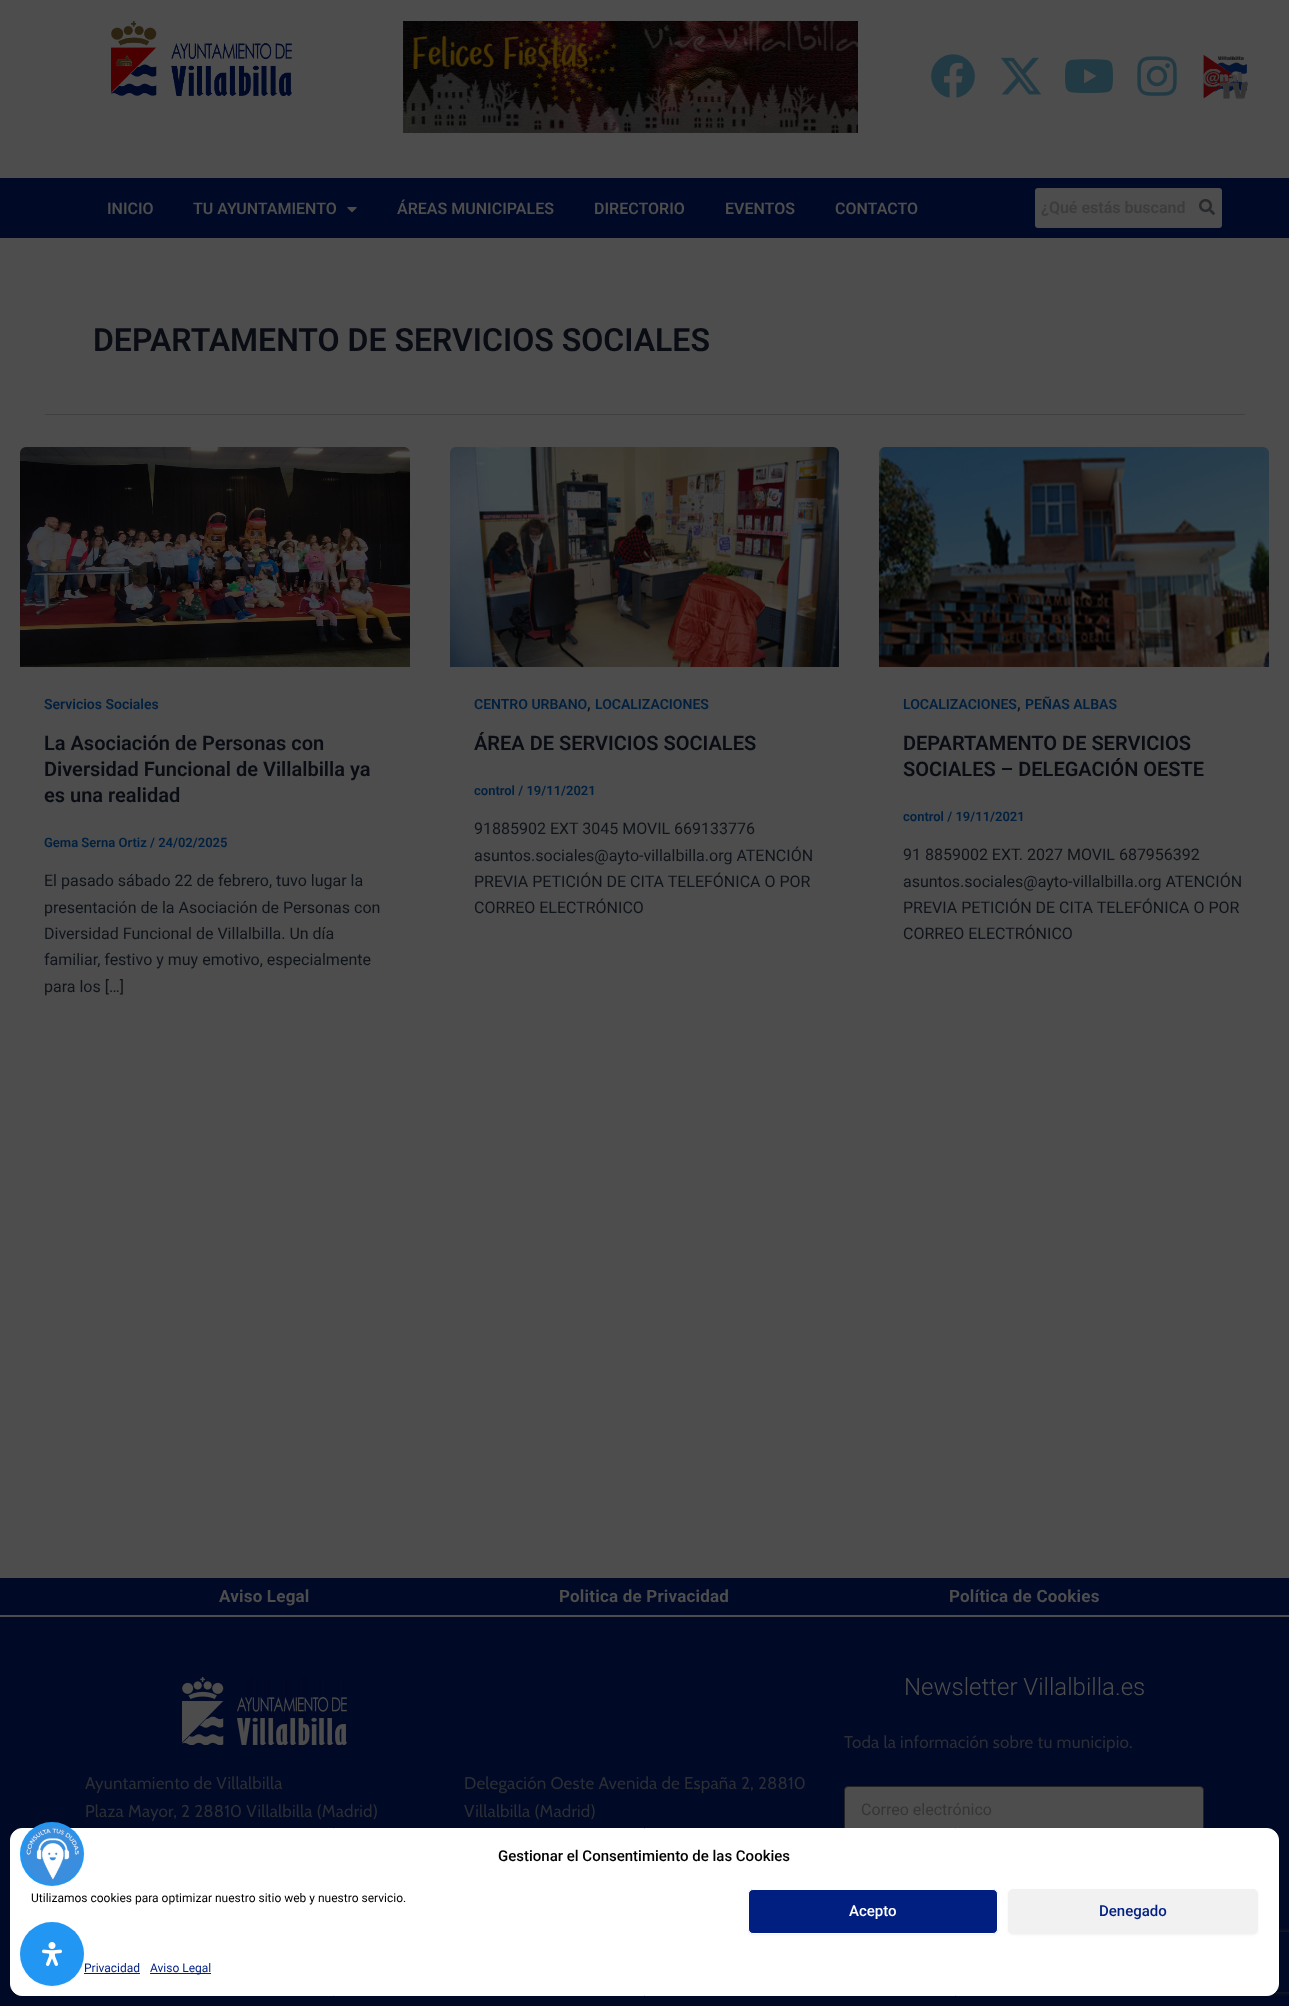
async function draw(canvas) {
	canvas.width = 1289;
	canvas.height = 2006;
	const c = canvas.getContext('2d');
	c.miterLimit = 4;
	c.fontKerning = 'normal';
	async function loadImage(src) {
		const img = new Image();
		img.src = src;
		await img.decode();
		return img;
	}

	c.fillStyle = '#4d4d4d';
	c.fillRect(0, 0, 1289, 2006);
	c.drawImage(await loadImage('img1.png'), 111, 21, 181, 75);
	c.drawImage(await loadImage('img2.png'), 403, 21, 455, 112);
	c.drawImage(await loadImage('img3.png'), 931, 54, 44, 44);
	c.drawImage(await loadImage('img4.png'), 1001, 57, 41, 38);
	c.drawImage(await loadImage('img5.png'), 1065, 59, 48, 34);
	c.drawImage(await loadImage('img6.png'), 1137, 56, 40, 40);
	c.drawImage(await loadImage('img7.png'), 1203, 55, 45, 44);
	c.fillStyle = '#000926';
	c.fillRect(0, 178, 1289, 60);
	c.font = '600 16px Roboto';
	c.fillStyle = '#4d4d4d';
	c.fillText('INICIO', 107, 214);
	c.fillText('TU AYUNTAMIENTO', 193, 214);
	c.drawImage(await loadImage('img8.png'), 347, 207, 10, 6);
	for (const [text, x, y] of [
		['ÁREAS MUNICIPALES', 397, 214],
		['DIRECTORIO', 594, 214],
		['EVENTOS', 725, 214],
		['CONTACTO', 835, 214],
	]) {
		c.fillText(text, x, y);
	}
	c.beginPath();
	c.roundRect(1035, 188, 157, 40, [3, 0, 0, 3]);
	c.fill();
	c.fillStyle = '#3c3c3c';
	c.fillText('¿Qué estás buscand', 1041, 213);
	c.fillStyle = '#4d4d4d';
	c.beginPath();
	c.roundRect(1192, 188, 30, 40, [0, 3, 3, 0]);
	c.fill();
	c.drawImage(await loadImage('img9.png'), 1199, 199, 16, 16);
	c.fillStyle = '#3f4042';
	c.fillRect(45, 414, 1200, 1);
	c.font = '600 32px Roboto';
	c.fillStyle = '#090c12';
	c.fillText('DEPARTAMENTO DE SERVICIOS SOCIALES', 93, 351);
	c.drawImage(await loadImage('img10.png'), 20, 447, 390, 220);
	c.font = '600 14px Roboto';
	c.fillStyle = '#01203f';
	c.fillText('Servicios Sociales', 44, 709);
	c.font = '600 20px Roboto';
	c.fillStyle = '#090c12';
	for (const [text, x, y] of [
		['La Asociación de Personas con', 44, 750],
		['Diversidad Funcional de Villalbilla ya', 44, 776],
		['es una realidad', 44, 802],
	]) {
		c.fillText(text, x, y);
	}
	c.font = '600 13px Roboto';
	c.fillStyle = '#01203f';
	c.fillText('Gema Serna Ortiz / 24/02/2025', 44, 847);
	c.font = '16px Roboto';
	c.fillStyle = '#0f141a';
	for (const [text, x, y] of [
		['El pasado sábado 22 de febrero, tuvo lugar la', 44, 886],
		['presentación de la Asociación de Personas con', 44, 913],
		['Diversidad Funcional de Villalbilla. Un día', 44, 939],
		['familiar, festivo y muy emotivo, especialmente', 44, 965],
		['para los […]', 44, 992],
	]) {
		c.fillText(text, x, y);
	}
	c.drawImage(await loadImage('img11.png'), 450, 447, 389, 220);
	c.font = '600 14px Roboto';
	c.fillStyle = '#01203f';
	c.fillText('CENTRO URBANO', 474, 709);
	c.font = '600 16px Roboto';
	c.fillStyle = '#0f141a';
	c.fillText(',', 587, 709);
	c.font = '600 14px Roboto';
	c.fillStyle = '#01203f';
	c.fillText('LOCALIZACIONES', 595, 709);
	c.font = '600 20px Roboto';
	c.fillStyle = '#090c12';
	c.fillText('ÁREA DE SERVICIOS SOCIALES', 474, 750);
	c.font = '600 13px Roboto';
	c.fillStyle = '#01203f';
	c.fillText('control / 19/11/2021', 474, 795);
	c.font = '16px Roboto';
	c.fillStyle = '#0f141a';
	for (const [text, x, y] of [
		['91885902 EXT 3045 MOVIL 669133776', 474, 834],
		['asuntos.sociales@ayto-villalbilla.org ATENCIÓN', 474, 861],
		['PREVIA PETICIÓN DE CITA TELEFÓNICA O POR', 474, 887],
		['CORREO ELECTRÓNICO', 474, 913],
	]) {
		c.fillText(text, x, y);
	}
	c.drawImage(await loadImage('img12.png'), 879, 447, 390, 220);
	c.font = '600 14px Roboto';
	c.fillStyle = '#01203f';
	c.fillText('LOCALIZACIONES', 903, 709);
	c.font = '600 16px Roboto';
	c.fillStyle = '#0f141a';
	c.fillText(',', 1017, 709);
	c.font = '600 14px Roboto';
	c.fillStyle = '#01203f';
	c.fillText('PEÑAS ALBAS', 1025, 709);
	c.font = '600 20px Roboto';
	c.fillStyle = '#090c12';
	c.fillText('DEPARTAMENTO DE SERVICIOS', 903, 750);
	c.fillText('SOCIALES – DELEGACIÓN OESTE', 903, 776);
	c.font = '600 13px Roboto';
	c.fillStyle = '#01203f';
	c.fillText('control / 19/11/2021', 903, 821);
	c.font = '16px Roboto';
	c.fillStyle = '#0f141a';
	for (const [text, x, y] of [
		['91 8859002 EXT. 2027 MOVIL 687956392', 903, 860],
		['asuntos.sociales@ayto-villalbilla.org ATENCIÓN', 903, 887],
		['PREVIA PETICIÓN DE CITA TELEFÓNICA O POR', 903, 913],
		['CORREO ELECTRÓNICO', 903, 939],
	]) {
		c.fillText(text, x, y);
	}
	c.fillStyle = '#000926';
	c.fillRect(0, 1578, 1289, 37);
	c.letterSpacing = '0.2px';
	c.font = 'bold 17px Roboto';
	c.fillStyle = '#4d4d4d';
	for (const [text, x, y] of [
		['Aviso Legal', 219, 1602],
		['Politica de Privacidad', 559, 1602],
		['Política de Cookies', 949, 1602],
	]) {
		c.fillText(text, x, y);
	}
	c.fillStyle = '#000926';
	c.fillRect(0, 1617, 1289, 389);
	c.drawImage(await loadImage('img13.png'), 182, 1677, 165, 68);
	c.font = '17px Cabin';
	c.fillStyle = '#2a2d34';
	for (const [text, x, y] of [
		['Ayuntamiento de Villalbilla', 85, 1789],
		['Plaza Mayor, 2 28810 Villalbilla (Madrid)', 85, 1817],
		['Delegación Oeste Avenida de España 2, 28810', 464, 1789],
		['Villalbilla (Madrid)', 464, 1817],
	]) {
		c.fillText(text, x, y);
	}
	c.letterSpacing = '0px';
	c.font = '300 24px Roboto';
	c.fillStyle = '#4d4d4d';
	c.fillText('Newsletter Villalbilla.es', 904, 1695);
	c.letterSpacing = '0.2px';
	c.font = '17px Cabin';
	c.fillStyle = '#2a2d34';
	c.fillText('Toda la información sobre tu municipio.', 844, 1748);
	c.fillStyle = '#4d4d4d';
	c.beginPath();
	c.roundRect(844.5, 1786.5, 359, 46, 3.5);
	c.fill();
	c.strokeStyle = '#202226';
	c.stroke();
	c.letterSpacing = '0px';
	c.font = '16px Roboto';
	c.fillStyle = '#353535';
	c.fillText('Correo electrónico', 861, 1815);
	c.save();
	c.beginPath();
	c.moveTo(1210, 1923);
	c.lineTo(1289, 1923);
	c.lineTo(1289, 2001);
	c.lineTo(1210, 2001);
	c.closePath();
	c.moveTo(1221, 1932);
	c.lineTo(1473, 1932);
	c.bezierCurveTo(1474, 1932, 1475, 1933, 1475, 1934);
	c.lineTo(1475, 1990);
	c.bezierCurveTo(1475, 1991, 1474, 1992, 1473, 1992);
	c.lineTo(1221, 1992);
	c.bezierCurveTo(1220, 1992, 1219, 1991, 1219, 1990);
	c.lineTo(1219, 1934);
	c.bezierCurveTo(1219, 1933, 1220, 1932, 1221, 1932);
	c.closePath();
	c.clip('evenodd');
	c.fillStyle = '#262626';
	c.filter = 'blur(2.5px)';
	c.beginPath();
	c.roundRect(1219, 1932, 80, 60, 2);
	c.fill();
	c.filter = 'none';
	c.restore();
	c.fillStyle = '#fff';
	c.beginPath();
	c.roundRect(10.5, 1828.5, 1268, 167, 11.5);
	c.fill();
	c.strokeStyle = '#fff';
	c.stroke();
	c.fillStyle = '#0000000d';
	c.filter = 'blur(1px)';
	c.beginPath();
	c.roundRect(20, 1823, 64, 64, 32);
	c.fill();
	c.filter = 'none';
	c.fillStyle = '#2196f3';
	c.beginPath();
	c.arc(52, 1854, 32, 0, 2 * Math.PI);
	c.fill();
	c.drawImage(await loadImage('img14.png'), 23, 1825, 59, 59);
	c.font = '500 15px Roboto';
	c.fillStyle = '#000';
	c.fillText('Gestionar el Consentimiento de las Cookies', 498, 1861);
	c.font = '12px Roboto';
	c.fillText('Utilizamos cookies para optimizar nuestro sitio web y nuestro servicio.', 31, 1902);
	c.fillStyle = '#0000000d';
	c.filter = 'blur(1px)';
	c.beginPath();
	c.roundRect(748, 1890, 250, 45, 5);
	c.fill();
	c.filter = 'none';
	c.fillStyle = '#001f80';
	c.beginPath();
	c.roundRect(748.5, 1889.5, 249, 44, 4.5);
	c.fill();
	c.stroke();
	c.font = '500 15px Roboto';
	c.fillStyle = '#fff';
	c.fillText('Acepto', 849, 1916);
	c.fillStyle = '#0000000d';
	c.filter = 'blur(1px)';
	c.beginPath();
	c.roundRect(1008, 1890, 250, 45, 5);
	c.fill();
	c.filter = 'none';
	c.fillStyle = '#f1f1f1';
	c.beginPath();
	c.roundRect(1008.5, 1889.5, 249, 44, 4.5);
	c.fill();
	c.strokeStyle = '#f1f1f1';
	c.stroke();
	c.fillStyle = '#001f80';
	c.fillText('Denegado', 1099, 1916);
	c.font = '12px Roboto';
	c.fillText('Privacidad', 84, 1972);
	c.fillRect(84, 1973, 56, 1);
	c.fillRect(150, 1973, 61, 1);
	c.fillText('Aviso Legal', 150, 1972);
	c.fillStyle = '#0000000d';
	c.filter = 'blur(1px)';
	c.beginPath();
	c.roundRect(20, 1923, 64, 64, 32);
	c.fill();
	c.filter = 'none';
	c.fillStyle = '#2196f3';
	c.beginPath();
	c.arc(52, 1954, 32, 0, 2 * Math.PI);
	c.fill();
	c.drawImage(await loadImage('img15.png'), 42, 1942, 20, 24);
}

draw(document.querySelector('canvas'));
